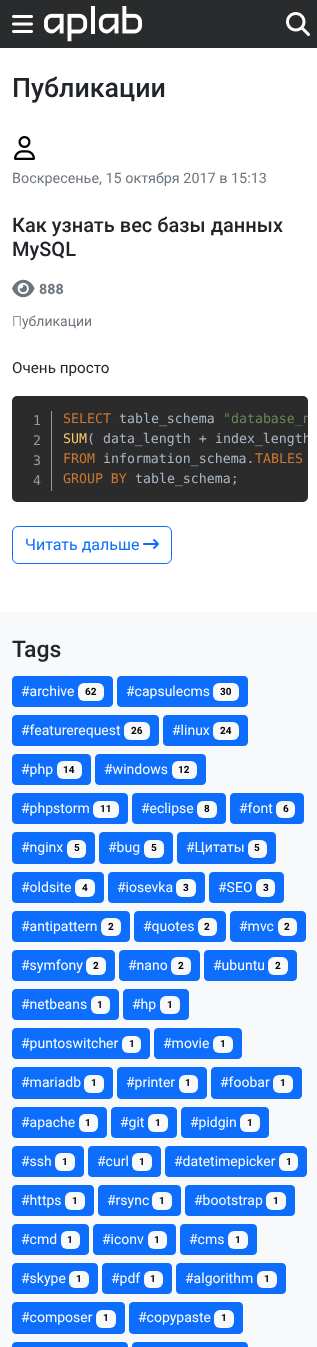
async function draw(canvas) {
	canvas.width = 317;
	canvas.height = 1347;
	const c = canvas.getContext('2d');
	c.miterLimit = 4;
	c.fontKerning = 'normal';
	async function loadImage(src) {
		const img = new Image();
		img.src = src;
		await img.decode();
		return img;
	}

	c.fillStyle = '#292b2c';
	c.fillRect(0, 0, 317, 1347);
	c.drawImage(await loadImage('img1.png'), 12, 15, 21, 18);
	c.drawImage(await loadImage('img2.png'), 44, 6, 98, 36);
	c.drawImage(await loadImage('img3.png'), 286, 12, 24, 24);
	c.fillStyle = '#fff';
	c.fillRect(0, 48, 317, 564);
	c.font = '500 26.75px Roboto';
	c.fillStyle = '#212529';
	c.fillText('Публикации', 12, 97);
	c.drawImage(await loadImage('img4.png'), 14, 136, 21, 24);
	c.font = '14.4px Roboto';
	c.fillStyle = '#6c757d';
	c.fillText('Воскресенье, 15 октября 2017 в 15:13', 12, 183);
	c.font = '500 20px Roboto';
	c.fillStyle = '#212529';
	c.fillText('Как узнать вес базы данных', 12, 232);
	c.fillText('MySQL', 12, 256);
	c.drawImage(await loadImage('img5.png'), 12, 279, 23, 19);
	c.font = 'bold 14.4px Roboto';
	c.fillStyle = '#6c757d';
	c.fillText('888', 39, 294);
	c.font = '300 14px Noto Sans';
	c.fillText('П', 12, 326);
	c.font = '14px Roboto';
	c.fillText('убликации', 22, 326);
	c.font = '15.25px Roboto';
	c.fillStyle = '#212529';
	c.fillText('Очень просто', 12, 373);
	c.fillStyle = '#2b2b2b';
	c.beginPath();
	c.roundRect(12, 396, 296, 106, 5);
	c.fill();
	c.fillStyle = '#999';
	c.fillRect(51, 411, 1, 80);
	c.letterSpacing = '-1px';
	c.font = '13.25px DejaVu Sans Mono';
	for (const [text, x, y] of [
		['1', 33, 425],
		['2', 33, 445],
		['3', 33, 465],
		['4', 33, 485],
	]) {
		c.fillText(text, x, y);
	}
	c.letterSpacing = '0px';
	c.fillStyle = '#cc7832';
	c.fillText('SELECT', 63, 423);
	c.fillStyle = '#a9b7c6';
	c.fillText('table_schema', 119, 423);
	c.save();
	c.beginPath();
	c.roundRect(12, 396, 296, 106, 5);
	c.clip();
	c.fillStyle = '#6a8759';
	c.fillText('"database_n', 223, 423);
	c.restore();
	c.fillStyle = '#ffc66d';
	c.fillText('SUM', 63, 443);
	c.fillStyle = '#a9b7c6';
	c.fillText('( data_length +', 87, 443);
	c.save();
	c.beginPath();
	c.roundRect(12, 396, 296, 106, 5);
	c.clip();
	c.fillText('index_length', 215, 443);
	c.restore();
	c.fillStyle = '#cc7832';
	c.fillText('FROM', 63, 463);
	c.fillStyle = '#a9b7c6';
	c.fillText('information_schema.', 103, 463);
	c.fillStyle = '#cc7832';
	c.fillText('TABLES', 255, 463);
	c.fillText('GROUP BY', 63, 483);
	c.fillStyle = '#a9b7c6';
	c.fillText('table_schema;', 135, 483);
	c.beginPath();
	c.roundRect(12.5, 526.5, 159, 37, 5.5);
	c.strokeStyle = '#0d6efd';
	c.stroke();
	c.font = '16px Roboto';
	c.fillStyle = '#0d6efd';
	c.fillText('Читать дальше', 25, 550);
	c.drawImage(await loadImage('img6.png'), 143, 539, 16, 10);
	c.fillStyle = '#f8f9fa';
	c.fillRect(0, 612, 317, 735);
	c.font = '500 23px Roboto';
	c.fillStyle = '#212529';
	c.fillText('Tags', 12, 657);
	c.fillStyle = '#0d6efd';
	c.beginPath();
	c.roundRect(12.5, 676.5, 100, 30, 3.5);
	c.fill();
	c.stroke();
	c.font = '14px Roboto';
	c.fillStyle = '#fff';
	c.fillText('#archive', 21, 696);
	c.fillStyle = '#f8f9fa';
	c.beginPath();
	c.roundRect(78, 683, 26, 18, 6);
	c.fill();
	c.font = 'bold 10px Roboto';
	c.fillStyle = '#000';
	c.fillText('62', 85, 695);
	c.fillStyle = '#0d6efd';
	c.beginPath();
	c.roundRect(117.5, 676.5, 130, 30, 3.5);
	c.fill();
	c.stroke();
	c.font = '14px Roboto';
	c.fillStyle = '#fff';
	c.fillText('#capsulecms', 126, 696);
	c.fillStyle = '#f8f9fa';
	c.beginPath();
	c.roundRect(213, 683, 26, 18, 6);
	c.fill();
	c.font = 'bold 10px Roboto';
	c.fillStyle = '#000';
	c.fillText('30', 220, 695);
	c.fillStyle = '#0d6efd';
	c.beginPath();
	c.roundRect(12.5, 715.5, 146, 30, 3.5);
	c.fill();
	c.stroke();
	c.font = '14px Roboto';
	c.fillStyle = '#fff';
	c.fillText('#featurerequest', 21, 735);
	c.fillStyle = '#f8f9fa';
	c.beginPath();
	c.roundRect(124, 722, 26, 18, 6);
	c.fill();
	c.font = 'bold 10px Roboto';
	c.fillStyle = '#000';
	c.fillText('26', 131, 734);
	c.fillStyle = '#0d6efd';
	c.beginPath();
	c.roundRect(163.5, 715.5, 84, 30, 3.5);
	c.fill();
	c.stroke();
	c.font = '14px Roboto';
	c.fillStyle = '#fff';
	c.fillText('#linux', 172, 735);
	c.fillStyle = '#f8f9fa';
	c.beginPath();
	c.roundRect(213, 722, 26, 18, 6);
	c.fill();
	c.font = 'bold 10px Roboto';
	c.fillStyle = '#000';
	c.fillText('24', 220, 734);
	c.fillStyle = '#0d6efd';
	c.beginPath();
	c.roundRect(12.5, 754.5, 78, 30, 3.5);
	c.fill();
	c.stroke();
	c.font = '14px Roboto';
	c.fillStyle = '#fff';
	c.fillText('#php', 21, 774);
	c.fillStyle = '#f8f9fa';
	c.beginPath();
	c.roundRect(57, 761, 25, 18, 6);
	c.fill();
	c.font = 'bold 10px Roboto';
	c.fillStyle = '#000';
	c.fillText('14', 63, 773);
	c.fillStyle = '#0d6efd';
	c.beginPath();
	c.roundRect(95.5, 754.5, 110, 30, 3.5);
	c.fill();
	c.stroke();
	c.font = '14px Roboto';
	c.fillStyle = '#fff';
	c.fillText('#windows', 104, 774);
	c.fillStyle = '#f8f9fa';
	c.beginPath();
	c.roundRect(172, 761, 25, 18, 6);
	c.fill();
	c.font = 'bold 10px Roboto';
	c.fillStyle = '#000';
	c.fillText('12', 178, 773);
	c.fillStyle = '#0d6efd';
	c.beginPath();
	c.roundRect(12.5, 793.5, 115, 30, 3.5);
	c.fill();
	c.stroke();
	c.font = '14px Roboto';
	c.fillStyle = '#fff';
	c.fillText('#phpstorm', 21, 813);
	c.fillStyle = '#f8f9fa';
	c.beginPath();
	c.roundRect(93, 801, 26, 17, 6);
	c.fill();
	c.font = 'bold 10px Roboto';
	c.fillStyle = '#000';
	c.fillText('11', 100, 812);
	c.fillStyle = '#0d6efd';
	c.beginPath();
	c.roundRect(132.5, 793.5, 93, 30, 3.5);
	c.fill();
	c.stroke();
	c.font = '14px Roboto';
	c.fillStyle = '#fff';
	c.fillText('#eclipse', 141, 813);
	c.fillStyle = '#f8f9fa';
	c.beginPath();
	c.roundRect(197, 801, 20, 17, 6);
	c.fill();
	c.font = 'bold 10px Roboto';
	c.fillStyle = '#000';
	c.fillText('8', 204, 812);
	c.fillStyle = '#0d6efd';
	c.beginPath();
	c.roundRect(230.5, 793.5, 73, 30, 3.5);
	c.fill();
	c.stroke();
	c.font = '14px Roboto';
	c.fillStyle = '#fff';
	c.fillText('#font', 239, 813);
	c.fillStyle = '#f8f9fa';
	c.beginPath();
	c.roundRect(276, 801, 19, 17, 6);
	c.fill();
	c.font = 'bold 10px Roboto';
	c.fillStyle = '#000';
	c.fillText('6', 283, 812);
	c.fillStyle = '#0d6efd';
	c.beginPath();
	c.roundRect(12.5, 832.5, 82, 31, 3.5);
	c.fill();
	c.stroke();
	c.font = '14px Roboto';
	c.fillStyle = '#fff';
	c.fillText('#nginx', 21, 852);
	c.fillStyle = '#f8f9fa';
	c.beginPath();
	c.roundRect(67, 840, 19, 18, 6);
	c.fill();
	c.font = 'bold 10px Roboto';
	c.fillStyle = '#000';
	c.fillText('5', 74, 851);
	c.fillStyle = '#0d6efd';
	c.beginPath();
	c.roundRect(99.5, 832.5, 73, 31, 3.5);
	c.fill();
	c.stroke();
	c.font = '14px Roboto';
	c.fillStyle = '#fff';
	c.fillText('#bug', 108, 852);
	c.fillStyle = '#f8f9fa';
	c.beginPath();
	c.roundRect(144, 840, 20, 18, 6);
	c.fill();
	c.font = 'bold 10px Roboto';
	c.fillStyle = '#000';
	c.fillText('5', 151, 851);
	c.fillStyle = '#0d6efd';
	c.beginPath();
	c.roundRect(177.5, 832.5, 98, 31, 3.5);
	c.fill();
	c.stroke();
	c.font = '14px Roboto';
	c.fillStyle = '#fff';
	c.fillText('#Цитаты', 186, 852);
	c.fillStyle = '#f8f9fa';
	c.beginPath();
	c.roundRect(248, 840, 19, 18, 6);
	c.fill();
	c.font = 'bold 10px Roboto';
	c.fillStyle = '#000';
	c.fillText('5', 254, 851);
	c.fillStyle = '#0d6efd';
	c.beginPath();
	c.roundRect(12.5, 872.5, 91, 30, 3.5);
	c.fill();
	c.stroke();
	c.font = '14px Roboto';
	c.fillStyle = '#fff';
	c.fillText('#oldsite', 21, 892);
	c.fillStyle = '#f8f9fa';
	c.beginPath();
	c.roundRect(75, 879, 20, 18, 6);
	c.fill();
	c.font = 'bold 10px Roboto';
	c.fillStyle = '#000';
	c.fillText('4', 82, 891);
	c.fillStyle = '#0d6efd';
	c.beginPath();
	c.roundRect(108.5, 872.5, 96, 30, 3.5);
	c.fill();
	c.stroke();
	c.font = '14px Roboto';
	c.fillStyle = '#fff';
	c.fillText('#iosevka', 117, 892);
	c.fillStyle = '#f8f9fa';
	c.beginPath();
	c.roundRect(176, 879, 20, 18, 6);
	c.fill();
	c.font = 'bold 10px Roboto';
	c.fillStyle = '#000';
	c.fillText('3', 183, 891);
	c.fillStyle = '#0d6efd';
	c.beginPath();
	c.roundRect(209.5, 872.5, 74, 30, 3.5);
	c.fill();
	c.stroke();
	c.font = '14px Roboto';
	c.fillStyle = '#fff';
	c.fillText('#SEO', 218, 892);
	c.fillStyle = '#f8f9fa';
	c.beginPath();
	c.roundRect(256, 879, 19, 18, 6);
	c.fill();
	c.font = 'bold 10px Roboto';
	c.fillStyle = '#000';
	c.fillText('3', 263, 891);
	c.fillStyle = '#0d6efd';
	c.beginPath();
	c.roundRect(12.5, 911.5, 117, 30, 3.5);
	c.fill();
	c.stroke();
	c.font = '14px Roboto';
	c.fillStyle = '#fff';
	c.fillText('#antipattern', 21, 931);
	c.fillStyle = '#f8f9fa';
	c.beginPath();
	c.roundRect(101, 918, 20, 18, 6);
	c.fill();
	c.font = 'bold 10px Roboto';
	c.fillStyle = '#000';
	c.fillText('2', 108, 930);
	c.fillStyle = '#0d6efd';
	c.beginPath();
	c.roundRect(134.5, 911.5, 91, 30, 3.5);
	c.fill();
	c.stroke();
	c.font = '14px Roboto';
	c.fillStyle = '#fff';
	c.fillText('#quotes', 143, 931);
	c.fillStyle = '#f8f9fa';
	c.beginPath();
	c.roundRect(198, 918, 19, 18, 6);
	c.fill();
	c.font = 'bold 10px Roboto';
	c.fillStyle = '#000';
	c.fillText('2', 204, 930);
	c.fillStyle = '#0d6efd';
	c.beginPath();
	c.roundRect(230.5, 911.5, 75, 30, 3.5);
	c.fill();
	c.stroke();
	c.font = '14px Roboto';
	c.fillStyle = '#fff';
	c.fillText('#mvc', 239, 931);
	c.fillStyle = '#f8f9fa';
	c.beginPath();
	c.roundRect(278, 918, 19, 18, 6);
	c.fill();
	c.font = 'bold 10px Roboto';
	c.fillStyle = '#000';
	c.fillText('2', 284, 930);
	c.fillStyle = '#0d6efd';
	c.beginPath();
	c.roundRect(12.5, 950.5, 102, 30, 3.5);
	c.fill();
	c.stroke();
	c.font = '14px Roboto';
	c.fillStyle = '#fff';
	c.fillText('#symfony', 21, 970);
	c.fillStyle = '#f8f9fa';
	c.beginPath();
	c.roundRect(86, 957, 20, 18, 6);
	c.fill();
	c.font = 'bold 10px Roboto';
	c.fillStyle = '#000';
	c.fillText('2', 93, 969);
	c.fillStyle = '#0d6efd';
	c.beginPath();
	c.roundRect(119.5, 950.5, 80, 30, 3.5);
	c.fill();
	c.stroke();
	c.font = '14px Roboto';
	c.fillStyle = '#fff';
	c.fillText('#nano', 128, 970);
	c.fillStyle = '#f8f9fa';
	c.beginPath();
	c.roundRect(171, 957, 20, 18, 6);
	c.fill();
	c.font = 'bold 10px Roboto';
	c.fillStyle = '#000';
	c.fillText('2', 178, 969);
	c.fillStyle = '#0d6efd';
	c.beginPath();
	c.roundRect(204.5, 950.5, 92, 30, 3.5);
	c.fill();
	c.stroke();
	c.font = '14px Roboto';
	c.fillStyle = '#fff';
	c.fillText('#ubuntu', 213, 970);
	c.fillStyle = '#f8f9fa';
	c.beginPath();
	c.roundRect(268, 957, 20, 18, 6);
	c.fill();
	c.font = 'bold 10px Roboto';
	c.fillStyle = '#000';
	c.fillText('2', 275, 969);
	c.fillStyle = '#0d6efd';
	c.beginPath();
	c.roundRect(12.5, 989.5, 106, 30, 3.5);
	c.fill();
	c.stroke();
	c.font = '14px Roboto';
	c.fillStyle = '#fff';
	c.fillText('#netbeans', 21, 1009);
	c.fillStyle = '#f8f9fa';
	c.beginPath();
	c.roundRect(91, 996, 19, 18, 6);
	c.fill();
	c.font = 'bold 10px Roboto';
	c.fillStyle = '#000';
	c.fillText('1', 97, 1008);
	c.fillStyle = '#0d6efd';
	c.beginPath();
	c.roundRect(123.5, 989.5, 65, 30, 3.5);
	c.fill();
	c.stroke();
	c.font = '14px Roboto';
	c.fillStyle = '#fff';
	c.fillText('#hp', 132, 1009);
	c.fillStyle = '#f8f9fa';
	c.beginPath();
	c.roundRect(160, 996, 20, 18, 6);
	c.fill();
	c.font = 'bold 10px Roboto';
	c.fillStyle = '#000';
	c.fillText('1', 167, 1008);
	c.fillStyle = '#0d6efd';
	c.beginPath();
	c.roundRect(12.5, 1028.5, 137, 30, 3.5);
	c.fill();
	c.stroke();
	c.font = '14px Roboto';
	c.fillStyle = '#fff';
	c.fillText('#puntoswitcher', 21, 1048);
	c.fillStyle = '#f8f9fa';
	c.beginPath();
	c.roundRect(122, 1036, 19, 17, 6);
	c.fill();
	c.font = 'bold 10px Roboto';
	c.fillStyle = '#000';
	c.fillText('1', 129, 1047);
	c.fillStyle = '#0d6efd';
	c.beginPath();
	c.roundRect(154.5, 1028.5, 87, 30, 3.5);
	c.fill();
	c.stroke();
	c.font = '14px Roboto';
	c.fillStyle = '#fff';
	c.fillText('#movie', 163, 1048);
	c.fillStyle = '#f8f9fa';
	c.beginPath();
	c.roundRect(213, 1036, 20, 17, 6);
	c.fill();
	c.font = 'bold 10px Roboto';
	c.fillStyle = '#000';
	c.fillText('1', 220, 1047);
	c.fillStyle = '#0d6efd';
	c.beginPath();
	c.roundRect(12.5, 1067.5, 100, 31, 3.5);
	c.fill();
	c.stroke();
	c.font = '14px Roboto';
	c.fillStyle = '#fff';
	c.fillText('#mariadb', 21, 1087);
	c.fillStyle = '#f8f9fa';
	c.beginPath();
	c.roundRect(84, 1075, 20, 18, 6);
	c.fill();
	c.font = 'bold 10px Roboto';
	c.fillStyle = '#000';
	c.fillText('1', 91, 1086);
	c.fillStyle = '#0d6efd';
	c.beginPath();
	c.roundRect(117.5, 1067.5, 89, 31, 3.5);
	c.fill();
	c.stroke();
	c.font = '14px Roboto';
	c.fillStyle = '#fff';
	c.fillText('#printer', 126, 1087);
	c.fillStyle = '#f8f9fa';
	c.beginPath();
	c.roundRect(179, 1075, 19, 18, 6);
	c.fill();
	c.font = 'bold 10px Roboto';
	c.fillStyle = '#000';
	c.fillText('1', 185, 1086);
	c.fillStyle = '#0d6efd';
	c.beginPath();
	c.roundRect(211.5, 1067.5, 90, 31, 3.5);
	c.fill();
	c.stroke();
	c.font = '14px Roboto';
	c.fillStyle = '#fff';
	c.fillText('#foobar', 220, 1087);
	c.fillStyle = '#f8f9fa';
	c.beginPath();
	c.roundRect(273, 1075, 20, 18, 6);
	c.fill();
	c.font = 'bold 10px Roboto';
	c.fillStyle = '#000';
	c.fillText('1', 280, 1086);
	c.fillStyle = '#0d6efd';
	c.beginPath();
	c.roundRect(12.5, 1107.5, 94, 30, 3.5);
	c.fill();
	c.stroke();
	c.font = '14px Roboto';
	c.fillStyle = '#fff';
	c.fillText('#apache', 21, 1127);
	c.fillStyle = '#f8f9fa';
	c.beginPath();
	c.roundRect(79, 1114, 19, 18, 6);
	c.fill();
	c.font = 'bold 10px Roboto';
	c.fillStyle = '#000';
	c.fillText('1', 85, 1126);
	c.fillStyle = '#0d6efd';
	c.beginPath();
	c.roundRect(111.5, 1107.5, 65, 30, 3.5);
	c.fill();
	c.stroke();
	c.font = '14px Roboto';
	c.fillStyle = '#fff';
	c.fillText('#git', 120, 1127);
	c.fillStyle = '#f8f9fa';
	c.beginPath();
	c.roundRect(148, 1114, 20, 18, 6);
	c.fill();
	c.font = 'bold 10px Roboto';
	c.fillStyle = '#000';
	c.fillText('1', 155, 1126);
	c.fillStyle = '#0d6efd';
	c.beginPath();
	c.roundRect(181.5, 1107.5, 87, 30, 3.5);
	c.fill();
	c.stroke();
	c.font = '14px Roboto';
	c.fillStyle = '#fff';
	c.fillText('#pidgin', 190, 1127);
	c.fillStyle = '#f8f9fa';
	c.beginPath();
	c.roundRect(240, 1114, 20, 18, 6);
	c.fill();
	c.font = 'bold 10px Roboto';
	c.fillStyle = '#000';
	c.fillText('1', 247, 1126);
	c.fillStyle = '#0d6efd';
	c.beginPath();
	c.roundRect(12.5, 1146.5, 71, 30, 3.5);
	c.fill();
	c.stroke();
	c.font = '14px Roboto';
	c.fillStyle = '#fff';
	c.fillText('#ssh', 21, 1166);
	c.fillStyle = '#f8f9fa';
	c.beginPath();
	c.roundRect(55, 1153, 20, 18, 6);
	c.fill();
	c.font = 'bold 10px Roboto';
	c.fillStyle = '#000';
	c.fillText('1', 62, 1165);
	c.fillStyle = '#0d6efd';
	c.beginPath();
	c.roundRect(88.5, 1146.5, 72, 30, 3.5);
	c.fill();
	c.stroke();
	c.font = '14px Roboto';
	c.fillStyle = '#fff';
	c.fillText('#curl', 97, 1166);
	c.fillStyle = '#f8f9fa';
	c.beginPath();
	c.roundRect(132, 1153, 20, 18, 6);
	c.fill();
	c.font = 'bold 10px Roboto';
	c.fillStyle = '#000';
	c.fillText('1', 139, 1165);
	c.fillStyle = '#0d6efd';
	c.beginPath();
	c.roundRect(165.5, 1146.5, 141, 30, 3.5);
	c.fill();
	c.stroke();
	c.font = '14px Roboto';
	c.fillStyle = '#fff';
	c.fillText('#datetimepicker', 174, 1166);
	c.fillStyle = '#f8f9fa';
	c.beginPath();
	c.roundRect(279, 1153, 19, 18, 6);
	c.fill();
	c.font = 'bold 10px Roboto';
	c.fillStyle = '#000';
	c.fillText('1', 286, 1165);
	c.fillStyle = '#0d6efd';
	c.beginPath();
	c.roundRect(12.5, 1185.5, 81, 30, 3.5);
	c.fill();
	c.stroke();
	c.font = '14px Roboto';
	c.fillStyle = '#fff';
	c.fillText('#https', 21, 1205);
	c.fillStyle = '#f8f9fa';
	c.beginPath();
	c.roundRect(65, 1192, 20, 18, 6);
	c.fill();
	c.font = 'bold 10px Roboto';
	c.fillStyle = '#000';
	c.fillText('1', 72, 1204);
	c.fillStyle = '#0d6efd';
	c.beginPath();
	c.roundRect(98.5, 1185.5, 82, 30, 3.5);
	c.fill();
	c.stroke();
	c.font = '14px Roboto';
	c.fillStyle = '#fff';
	c.fillText('#rsync', 107, 1205);
	c.fillStyle = '#f8f9fa';
	c.beginPath();
	c.roundRect(152, 1192, 20, 18, 6);
	c.fill();
	c.font = 'bold 10px Roboto';
	c.fillStyle = '#000';
	c.fillText('1', 159, 1204);
	c.fillStyle = '#0d6efd';
	c.beginPath();
	c.roundRect(185.5, 1185.5, 109, 30, 3.5);
	c.fill();
	c.stroke();
	c.font = '14px Roboto';
	c.fillStyle = '#fff';
	c.fillText('#bootstrap', 194, 1205);
	c.fillStyle = '#f8f9fa';
	c.beginPath();
	c.roundRect(266, 1192, 20, 18, 6);
	c.fill();
	c.font = 'bold 10px Roboto';
	c.fillStyle = '#000';
	c.fillText('1', 273, 1204);
	c.fillStyle = '#0d6efd';
	c.beginPath();
	c.roundRect(12.5, 1224.5, 76, 30, 3.5);
	c.fill();
	c.stroke();
	c.font = '14px Roboto';
	c.fillStyle = '#fff';
	c.fillText('#cmd', 21, 1244);
	c.fillStyle = '#f8f9fa';
	c.beginPath();
	c.roundRect(61, 1231, 19, 18, 6);
	c.fill();
	c.font = 'bold 10px Roboto';
	c.fillStyle = '#000';
	c.fillText('1', 67, 1243);
	c.fillStyle = '#0d6efd';
	c.beginPath();
	c.roundRect(93.5, 1224.5, 82, 30, 3.5);
	c.fill();
	c.stroke();
	c.font = '14px Roboto';
	c.fillStyle = '#fff';
	c.fillText('#iconv', 102, 1244);
	c.fillStyle = '#f8f9fa';
	c.beginPath();
	c.roundRect(148, 1231, 19, 18, 6);
	c.fill();
	c.font = 'bold 10px Roboto';
	c.fillStyle = '#000';
	c.fillText('1', 154, 1243);
	c.fillStyle = '#0d6efd';
	c.beginPath();
	c.roundRect(180.5, 1224.5, 76, 30, 3.5);
	c.fill();
	c.stroke();
	c.font = '14px Roboto';
	c.fillStyle = '#fff';
	c.fillText('#cms', 189, 1244);
	c.fillStyle = '#f8f9fa';
	c.beginPath();
	c.roundRect(228, 1231, 20, 18, 6);
	c.fill();
	c.font = 'bold 10px Roboto';
	c.fillStyle = '#000';
	c.fillText('1', 235, 1243);
	c.fillStyle = '#0d6efd';
	c.beginPath();
	c.roundRect(12.5, 1263.5, 85, 30, 3.5);
	c.fill();
	c.stroke();
	c.font = '14px Roboto';
	c.fillStyle = '#fff';
	c.fillText('#skype', 21, 1283);
	c.fillStyle = '#f8f9fa';
	c.beginPath();
	c.roundRect(69, 1271, 20, 17, 6);
	c.fill();
	c.font = 'bold 10px Roboto';
	c.fillStyle = '#000';
	c.fillText('1', 76, 1282);
	c.fillStyle = '#0d6efd';
	c.beginPath();
	c.roundRect(102.5, 1263.5, 69, 30, 3.5);
	c.fill();
	c.stroke();
	c.font = '14px Roboto';
	c.fillStyle = '#fff';
	c.fillText('#pdf', 111, 1283);
	c.fillStyle = '#f8f9fa';
	c.beginPath();
	c.roundRect(144, 1271, 19, 17, 6);
	c.fill();
	c.font = 'bold 10px Roboto';
	c.fillStyle = '#000';
	c.fillText('1', 150, 1282);
	c.fillStyle = '#0d6efd';
	c.beginPath();
	c.roundRect(176.5, 1263.5, 109, 30, 3.5);
	c.fill();
	c.stroke();
	c.font = '14px Roboto';
	c.fillStyle = '#fff';
	c.fillText('#algorithm', 185, 1283);
	c.fillStyle = '#f8f9fa';
	c.beginPath();
	c.roundRect(257, 1271, 20, 17, 6);
	c.fill();
	c.font = 'bold 10px Roboto';
	c.fillStyle = '#000';
	c.fillText('1', 264, 1282);
	c.fillStyle = '#0d6efd';
	c.beginPath();
	c.roundRect(12.5, 1302.5, 112, 31, 3.5);
	c.fill();
	c.stroke();
	c.font = '14px Roboto';
	c.fillStyle = '#fff';
	c.fillText('#composer', 21, 1322);
	c.fillStyle = '#f8f9fa';
	c.beginPath();
	c.roundRect(96, 1310, 20, 18, 6);
	c.fill();
	c.font = 'bold 10px Roboto';
	c.fillStyle = '#000';
	c.fillText('1', 103, 1321);
	c.fillStyle = '#0d6efd';
	c.beginPath();
	c.roundRect(129.5, 1302.5, 113, 31, 3.5);
	c.fill();
	c.stroke();
	c.font = '14px Roboto';
	c.fillStyle = '#fff';
	c.fillText('#copypaste', 138, 1322);
	c.fillStyle = '#f8f9fa';
	c.beginPath();
	c.roundRect(214, 1310, 20, 18, 6);
	c.fill();
	c.font = 'bold 10px Roboto';
	c.fillStyle = '#000';
	c.fillText('1', 221, 1321);
	c.fillStyle = '#0d6efd';
	c.beginPath();
	c.roundRect(12.5, 1342.5, 115, 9, 3.5);
	c.fill();
	c.stroke();
	c.beginPath();
	c.roundRect(132.5, 1342.5, 115, 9, 3.5);
	c.fill();
	c.stroke();
}

draw(document.querySelector('canvas'));
